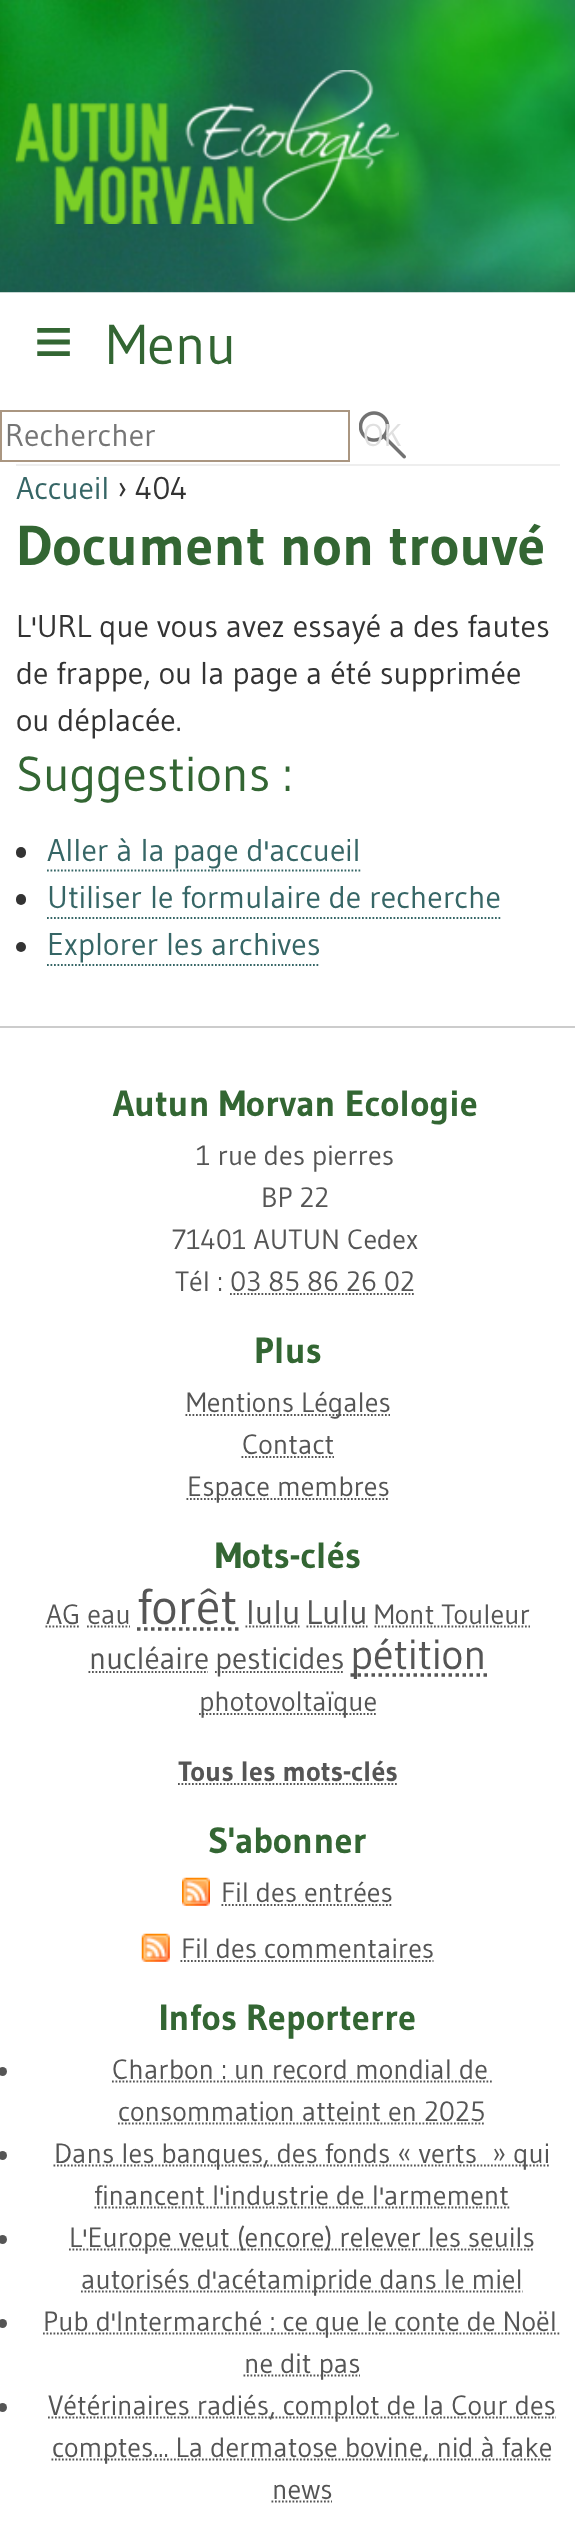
async function draw(canvas) {
	canvas.width = 575;
	canvas.height = 2534;
	const c = canvas.getContext('2d');
	c.miterLimit = 4;
	c.fontKerning = 'normal';
	async function loadImage(src) {
		const img = new Image();
		img.src = src;
		await img.decode();
		return img;
	}

	c.fillStyle = '#fff';
	c.fillRect(0, 0, 575, 2534);
	c.drawImage(await loadImage('img1.png'), 0, 0, 575, 293);
	c.drawImage(await loadImage('img2.png'), 15, 70, 384, 154);
	c.font = '67px Liberation Sans';
	c.fillStyle = '#363';
	c.fillText('≡', 34, 364);
	c.font = '56px Gudea';
	c.fillText('Menu', 106, 364);
	c.strokeStyle = '#aa9681';
	c.lineWidth = 2;
	c.strokeRect(1, 411, 348, 50);
	c.font = '31.5px Gudea';
	c.fillStyle = '#757575';
	c.fillText('Rechercher', 5, 446);
	c.drawImage(await loadImage('img3.png'), 359, 411, 47, 48);
	c.fillStyle = '#e0e0e0';
	c.fillText('OK', 363, 446);
	c.fillStyle = '#eee';
	c.fillRect(16, 464, 544, 2);
	c.fillStyle = '#366666';
	c.fillText('Accueil', 16, 499);
	c.fillStyle = '#333';
	c.fillText('› 404', 117, 499);
	c.font = 'bold 56px Gudea';
	c.fillStyle = '#363';
	c.fillText('Document non trouvé', 16, 565);
	c.font = '31.5px Gudea';
	c.fillStyle = '#333';
	for (const [text, x, y] of [
		['L\'URL que vous avez essayé a des fautes', 16, 637],
		['de frappe, ou la page a été supprimée', 16, 684],
		['ou déplacée.', 16, 731],
	]) {
		c.fillText(text, x, y);
	}
	c.font = '49px Gudea';
	c.fillStyle = '#363';
	c.fillText('Suggestions :', 16, 791);
	c.fillStyle = '#333';
	c.beginPath();
	c.roundRect(16, 847, 10, 11, 5);
	c.fill();
	c.font = '31.5px Gudea';
	c.fillStyle = '#366666';
	c.fillText('Aller à la page d\'accueil', 47, 861);
	c.beginPath();
	c.moveTo(47, 870.5);
	c.lineTo(360.5, 870.5);
	c.strokeStyle = '#366666';
	c.lineWidth = 1.8;
	c.setLineDash([1.75, 1.75]);
	c.stroke();
	c.fillStyle = '#333';
	c.beginPath();
	c.roundRect(16, 894, 10, 11, 5);
	c.fill();
	c.fillStyle = '#366666';
	c.fillText('Utiliser le formulaire de recherche', 47, 908);
	c.beginPath();
	c.moveTo(47, 918);
	c.lineTo(500.5, 918);
	c.stroke();
	c.fillStyle = '#333';
	c.beginPath();
	c.arc(21, 947, 5, 0, 2 * Math.PI);
	c.fill();
	c.fillStyle = '#366666';
	c.fillText('Explorer les archives', 47, 955);
	c.beginPath();
	c.moveTo(47, 965);
	c.lineTo(320, 965);
	c.stroke();
	c.fillStyle = '#ccc';
	c.fillRect(0, 1026, 575, 2);
	c.font = 'bold 36.4px Gudea';
	c.fillStyle = '#363';
	c.fillText('Autun Morvan Ecologie', 113, 1116);
	c.font = '28px Gudea';
	c.fillStyle = '#555';
	for (const [text, x, y] of [
		['1 rue des pierres', 196, 1165],
		['BP 22', 261, 1207],
		['71401 AUTUN Cedex', 172, 1249],
		['Tél : 03 85 86 26 02', 175, 1291],
	]) {
		c.fillText(text, x, y);
	}
	c.beginPath();
	c.moveTo(230, 1294);
	c.lineTo(414.5, 1294);
	c.strokeStyle = '#555';
	c.stroke();
	c.font = 'bold 36.4px Gudea';
	c.fillStyle = '#363';
	c.fillText('Plus', 254, 1363);
	c.beginPath();
	c.moveTo(185.5, 1415);
	c.lineTo(390, 1415);
	c.stroke();
	c.font = '28px Gudea';
	c.fillStyle = '#555';
	c.fillText('Mentions Légales', 186, 1412);
	c.fillText('Contact', 242, 1454);
	c.beginPath();
	c.moveTo(241.5, 1457);
	c.lineTo(334, 1457);
	c.stroke();
	c.beginPath();
	c.moveTo(186.5, 1499);
	c.lineTo(389, 1499);
	c.stroke();
	c.fillText('Espace membres', 187, 1496);
	c.font = 'bold 36.4px Gudea';
	c.fillStyle = '#363';
	c.fillText('Mots-clés', 215, 1568);
	c.font = '28px Gudea';
	c.fillStyle = '#555';
	c.fillText('AG eau', 46, 1624);
	c.beginPath();
	c.moveTo(45.5, 1626.5);
	c.lineTo(80, 1626.5);
	c.stroke();
	c.font = '50px Gudea';
	c.fillText('forêt', 137, 1624);
	c.beginPath();
	c.moveTo(137, 1629);
	c.lineTo(238.5, 1629);
	c.lineWidth = 3.5;
	c.setLineDash([3.5, 3.5]);
	c.stroke();
	c.font = '34px Gudea';
	c.fillText('lulu', 246, 1624);
	c.beginPath();
	c.moveTo(245.5, 1626.5);
	c.lineTo(299.5, 1626.5);
	c.lineWidth = 1.8;
	c.setLineDash([1.75, 1.75]);
	c.stroke();
	c.fillText('Lulu', 306, 1624);
	c.beginPath();
	c.moveTo(306.5, 1626.5);
	c.lineTo(367.5, 1626.5);
	c.stroke();
	c.font = '28px Gudea';
	c.fillText('Mont Touleur', 374, 1624);
	c.beginPath();
	c.moveTo(374.5, 1626.5);
	c.lineTo(530, 1626.5);
	c.stroke();
	c.beginPath();
	c.moveTo(87, 1626.5);
	c.lineTo(130, 1626.5);
	c.stroke();
	c.font = '31px Gudea';
	c.fillText('nucléaire', 89, 1669);
	c.beginPath();
	c.moveTo(88.5, 1672);
	c.lineTo(208, 1672);
	c.stroke();
	c.beginPath();
	c.moveTo(215, 1672);
	c.lineTo(343.5, 1672);
	c.stroke();
	c.fillText('pesticides', 215, 1669);
	c.beginPath();
	c.moveTo(350.5, 1675);
	c.lineTo(487, 1675);
	c.lineWidth = 3.5;
	c.setLineDash([3.5, 3.5]);
	c.stroke();
	c.font = '42px Gudea';
	c.fillText('pétition', 350, 1669);
	c.beginPath();
	c.moveTo(199, 1714);
	c.lineTo(377, 1714);
	c.lineWidth = 1.8;
	c.setLineDash([1.75, 1.75]);
	c.stroke();
	c.font = '28px Gudea';
	c.fillText('photovoltaïque', 199, 1711);
	c.font = 'bold 28px Gudea';
	c.fillText('Tous les mots-clés', 178, 1781);
	c.beginPath();
	c.moveTo(178, 1784);
	c.lineTo(397.5, 1784);
	c.stroke();
	c.font = 'bold 36.4px Gudea';
	c.fillStyle = '#363';
	c.fillText('S\'abonner', 208, 1853);
	c.drawImage(await loadImage('img4.png'), 182, 1877, 28, 29);
	c.font = '28px Gudea';
	c.fillStyle = '#555';
	c.fillText('Fil des entrées', 221, 1902);
	c.beginPath();
	c.moveTo(221.5, 1905);
	c.lineTo(393, 1905);
	c.stroke();
	c.drawImage(await loadImage('img5.png'), 141, 1933, 29, 29);
	c.fillText('Fil des commentaires', 181, 1958);
	c.beginPath();
	c.moveTo(180.5, 1961);
	c.lineTo(433.5, 1961);
	c.stroke();
	c.font = 'bold 36.4px Gudea';
	c.fillStyle = '#363';
	c.fillText('Infos Reporterre', 159, 2030);
	c.fillStyle = '#555';
	c.beginPath();
	c.arc(2.5, 2071.5, 4.5, 0, 2 * Math.PI);
	c.fill();
	c.font = '28px Gudea';
	c.fillText('Charbon : un record mondial de', 112, 2079);
	c.beginPath();
	c.moveTo(112, 2081.5);
	c.lineTo(492, 2081.5);
	c.stroke();
	c.fillText('consommation atteint en 2025', 118, 2121);
	c.beginPath();
	c.moveTo(118, 2123.5);
	c.lineTo(485.5, 2123.5);
	c.stroke();
	c.beginPath();
	c.arc(2.5, 2155.5, 4.5, 0, 2 * Math.PI);
	c.fill();
	c.beginPath();
	c.moveTo(53.5, 2165.5);
	c.lineTo(550, 2165.5);
	c.stroke();
	c.fillText('Dans les banques, des fonds « verts', 54, 2163);
	c.fillText('» qui', 492, 2163);
	c.fillText('financent l\'industrie de l\'armement', 94, 2205);
	c.beginPath();
	c.moveTo(94.5, 2207.5);
	c.lineTo(509.5, 2207.5);
	c.stroke();
	c.beginPath();
	c.arc(2.5, 2239.5, 4.5, 0, 2 * Math.PI);
	c.fill();
	c.beginPath();
	c.moveTo(69, 2249.5);
	c.lineTo(534.5, 2249.5);
	c.stroke();
	c.fillText('L\'Europe veut (encore) relever les seuils', 69, 2247);
	c.beginPath();
	c.moveTo(81, 2291.5);
	c.lineTo(522.5, 2291.5);
	c.stroke();
	c.fillText('autorisés d\'acétamipride dans le miel', 81, 2289);
	c.beginPath();
	c.arc(2.5, 2323.5, 4.5, 0, 2 * Math.PI);
	c.fill();
	c.beginPath();
	c.moveTo(43, 2333.5);
	c.lineTo(561, 2333.5);
	c.stroke();
	c.fillText('Pub d\'Intermarché : ce que le conte de Noël', 43, 2331);
	c.beginPath();
	c.moveTo(243.5, 2375.5);
	c.lineTo(360, 2375.5);
	c.stroke();
	c.fillText('ne dit pas', 244, 2373);
	c.beginPath();
	c.arc(2.5, 2407.5, 4.5, 0, 2 * Math.PI);
	c.fill();
	c.beginPath();
	c.moveTo(48, 2417.5);
	c.lineTo(556, 2417.5);
	c.stroke();
	c.fillText('Vétérinaires radiés, complot de la Cour des', 48, 2415);
	c.beginPath();
	c.moveTo(51.5, 2459.5);
	c.lineTo(552, 2459.5);
	c.stroke();
	c.fillText('comptes... La dermatose bovine, nid à fake', 52, 2457);
	c.fillText('news', 272, 2499);
	c.beginPath();
	c.moveTo(271.5, 2501.5);
	c.lineTo(332, 2501.5);
	c.stroke();
}

draw(document.querySelector('canvas'));
